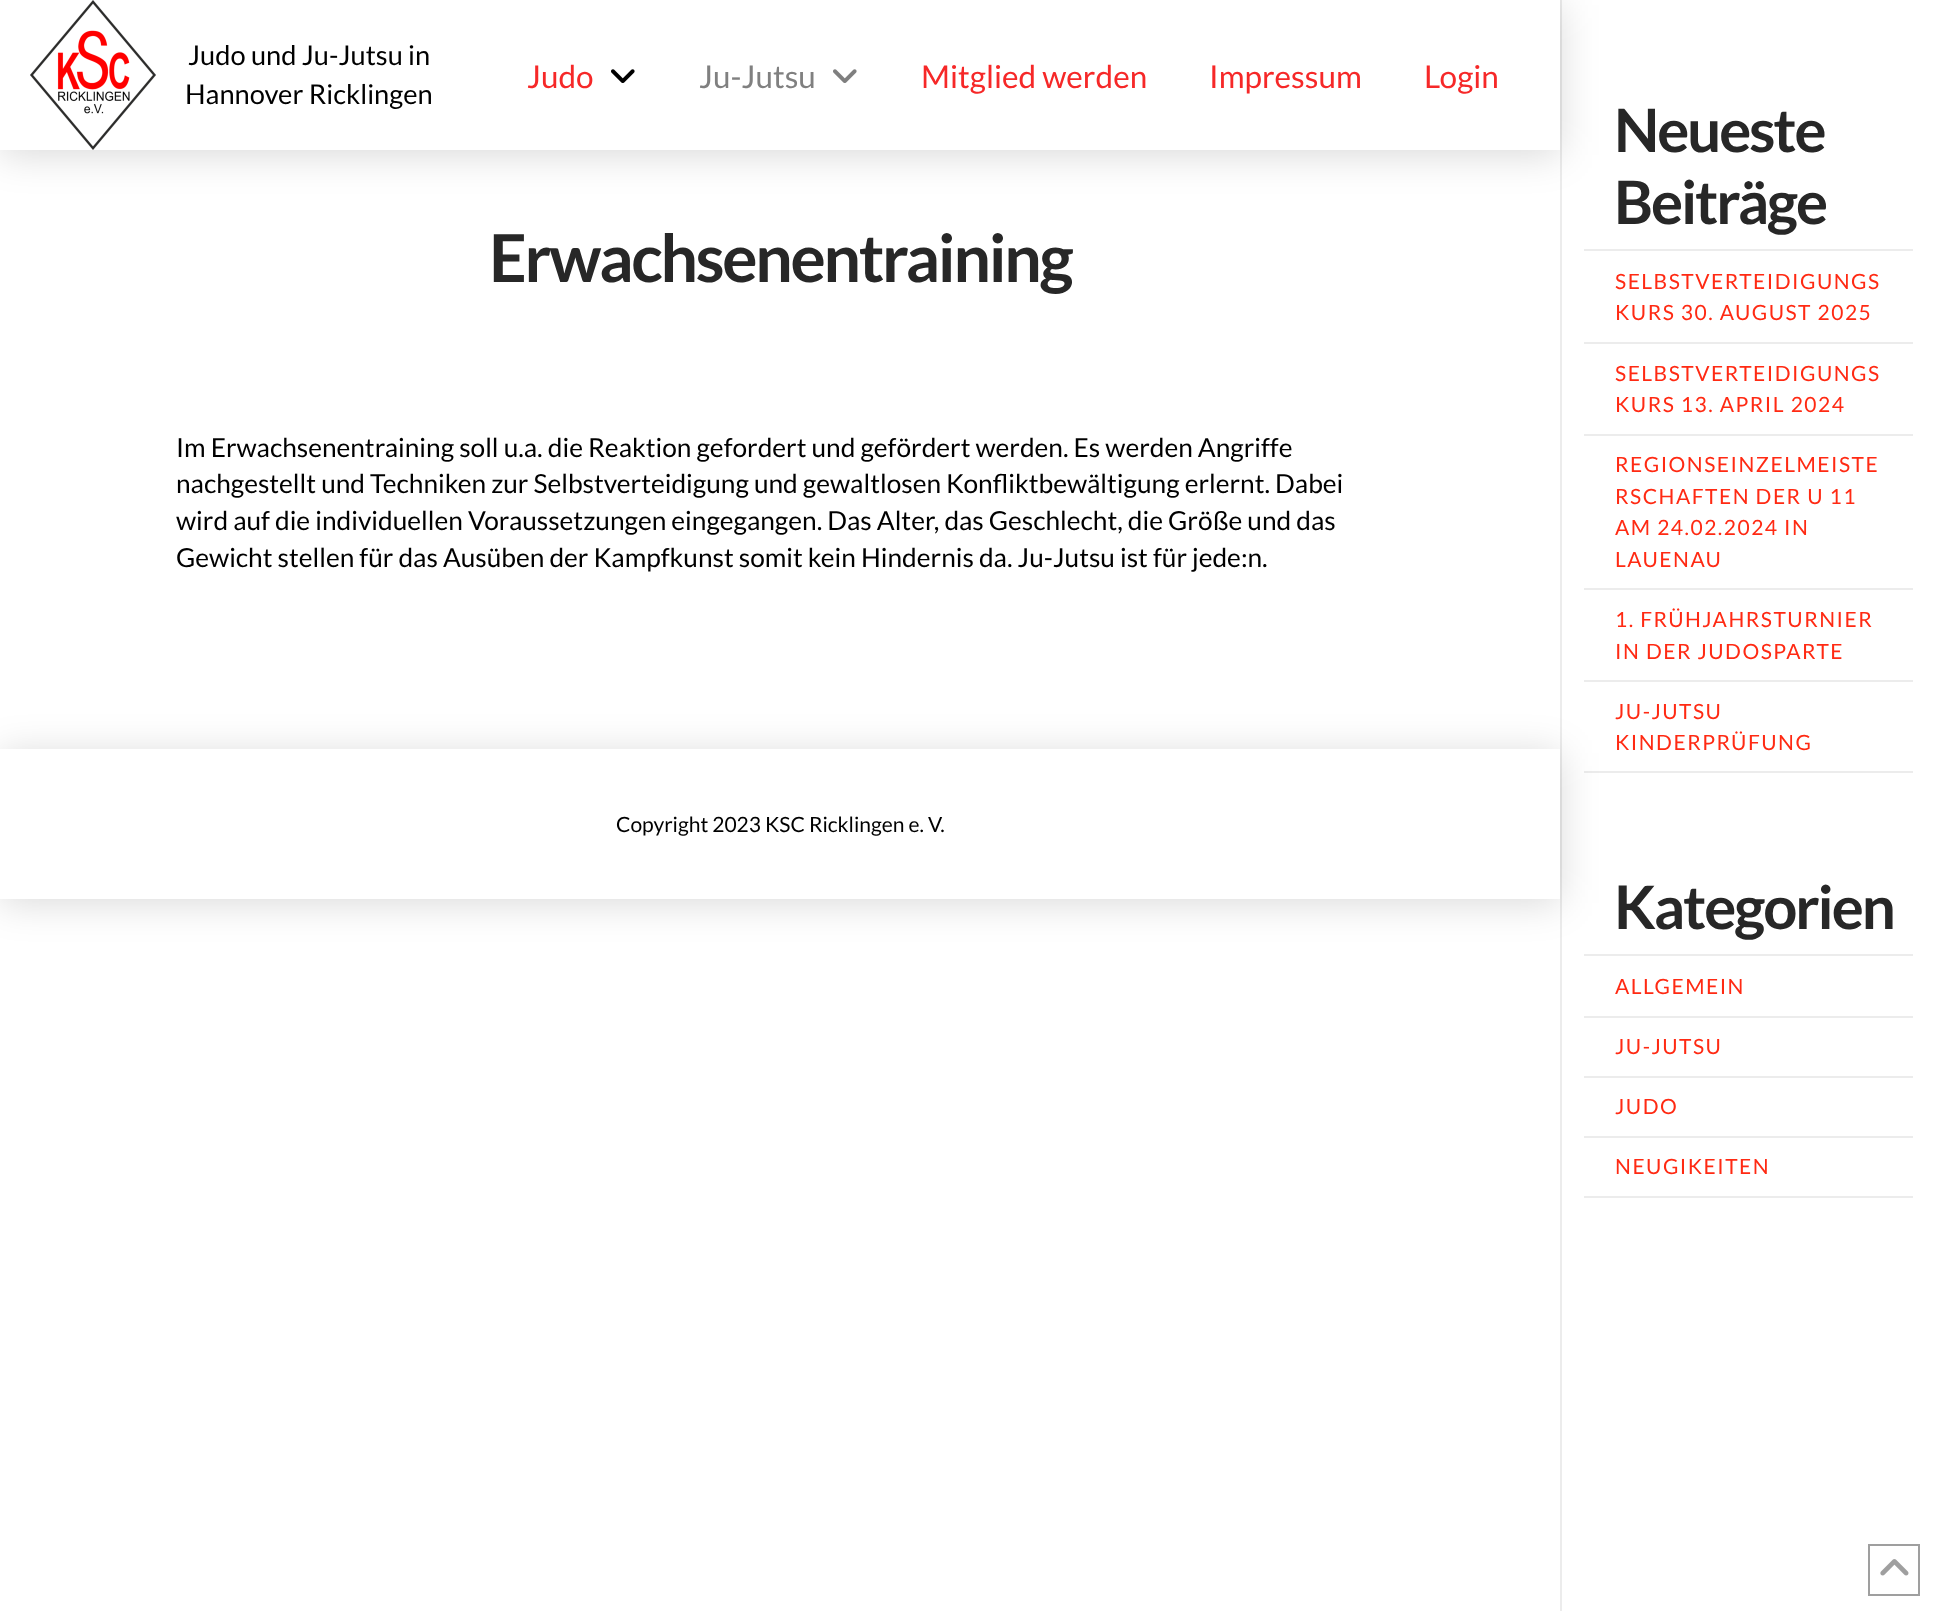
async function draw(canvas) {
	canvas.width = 1935;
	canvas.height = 1611;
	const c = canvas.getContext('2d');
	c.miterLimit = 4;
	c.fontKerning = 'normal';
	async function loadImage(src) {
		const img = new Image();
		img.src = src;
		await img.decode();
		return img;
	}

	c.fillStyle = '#fff';
	c.fillRect(0, 0, 1935, 1611);
	c.fillStyle = '#ececec';
	c.fillRect(1560, 0, 2, 1611);
	c.save();
	c.beginPath();
	c.moveTo(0, 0);
	c.lineTo(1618, 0);
	c.lineTo(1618, 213);
	c.lineTo(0, 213);
	c.closePath();
	c.moveTo(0, 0);
	c.lineTo(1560, 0);
	c.lineTo(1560, 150);
	c.lineTo(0, 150);
	c.closePath();
	c.clip('evenodd');
	c.fillStyle = '#00000026';
	c.filter = 'blur(19px)';
	c.beginPath();
	c.rect(0, 5, 1560, 150);
	c.fill();
	c.filter = 'none';
	c.restore();
	c.drawImage(await loadImage('img1.png'), 30, 0, 126, 150);
	c.font = '27.25px Lato';
	c.fillStyle = '#000';
	c.fillText('Judo und Ju-Jutsu in', 188, 65);
	c.fillText('Hannover Ricklingen', 185, 104);
	c.font = '31.5px Lato';
	c.fillStyle = '#f62828';
	c.fillText('Judo', 527, 88);
	c.drawImage(await loadImage('img2.png'), 611, 69, 24, 14);
	c.fillStyle = '#808080';
	c.fillText('Ju-Jutsu', 699, 88);
	c.drawImage(await loadImage('img3.png'), 833, 69, 24, 14);
	c.fillStyle = '#f62828';
	for (const [text, x, y] of [
		['Mitglied werden', 921, 88],
		['Impressum', 1209, 88],
		['Login', 1424, 88],
	]) {
		c.fillText(text, x, y);
	}
	c.letterSpacing = '-2.3px';
	c.font = 'bold 66px Lato';
	c.fillStyle = '#272727';
	c.fillText('Erwachsenentraining', 489, 282);
	c.letterSpacing = '0px';
	c.font = '26.25px Lato';
	c.fillStyle = '#000';
	for (const [text, x, y] of [
		['Im Erwachsenentraining soll u.a. die Reaktion gefordert und gefördert werden. Es werden Angriffe', 176, 457],
		['nachgestellt und Techniken zur Selbstverteidigung und gewaltlosen Konfliktbewältigung erlernt. Dabei', 176, 493],
		['wird auf die individuellen Voraussetzungen eingegangen. Das Alter, das Geschlecht, die Größe und das', 176, 530],
		['Gewicht stellen für das Ausüben der Kampfkunst somit kein Hindernis da. Ju-Jutsu ist für jede:n.', 176, 567],
	]) {
		c.fillText(text, x, y);
	}
	c.letterSpacing = '-2.1px';
	c.font = 'bold 60px Lato';
	c.fillStyle = '#272727';
	c.fillText('Neueste', 1614, 152);
	c.fillText('Beiträge', 1614, 224);
	c.fillStyle = '#ececec';
	c.fillRect(1584, 249, 329, 2);
	c.fillRect(1584, 342, 329, 2);
	c.letterSpacing = '1.5px';
	c.font = '21px Lato';
	c.fillStyle = '#ff2a13';
	c.fillText('SELBSTVERTEIDIGUNGS', 1615, 289);
	c.fillText('KURS 30. AUGUST 2025', 1615, 320);
	c.fillStyle = '#ececec';
	c.fillRect(1584, 434, 329, 2);
	c.fillStyle = '#ff2a13';
	c.fillText('SELBSTVERTEIDIGUNGS', 1615, 381);
	c.fillText('KURS 13. APRIL 2024', 1615, 412);
	c.fillStyle = '#ececec';
	c.fillRect(1584, 588, 329, 2);
	c.fillStyle = '#ff2a13';
	for (const [text, x, y] of [
		['REGIONSEINZELMEISTE', 1615, 472],
		['RSCHAFTEN DER U 11', 1615, 504],
		['AM 24.02.2024 IN', 1615, 535],
		['LAUENAU', 1615, 567],
	]) {
		c.fillText(text, x, y);
	}
	c.fillStyle = '#ececec';
	c.fillRect(1584, 680, 329, 2);
	c.fillStyle = '#ff2a13';
	c.fillText('1. FRÜHJAHRSTURNIER', 1615, 627);
	c.fillText('IN DER JUDOSPARTE', 1615, 659);
	c.fillStyle = '#ececec';
	c.fillRect(1584, 771, 329, 2);
	c.fillStyle = '#ff2a13';
	c.fillText('JU-JUTSU', 1615, 719);
	c.fillText('KINDERPRÜFUNG', 1615, 750);
	c.letterSpacing = '-2.1px';
	c.font = 'bold 60px Lato';
	c.fillStyle = '#272727';
	c.fillText('Kategorien', 1614, 929);
	c.fillStyle = '#ececec';
	c.fillRect(1584, 954, 329, 2);
	c.fillRect(1584, 1016, 329, 2);
	c.letterSpacing = '1.5px';
	c.font = '21px Lato';
	c.fillStyle = '#ff2a13';
	c.fillText('ALLGEMEIN', 1615, 994);
	c.fillStyle = '#ececec';
	c.fillRect(1584, 1076, 329, 2);
	c.fillStyle = '#ff2a13';
	c.fillText('JU-JUTSU', 1615, 1054);
	c.fillStyle = '#ececec';
	c.fillRect(1584, 1136, 329, 2);
	c.fillStyle = '#ff2a13';
	c.fillText('JUDO', 1615, 1114);
	c.fillStyle = '#ececec';
	c.fillRect(1584, 1196, 329, 2);
	c.fillStyle = '#ff2a13';
	c.fillText('NEUGIKEITEN', 1615, 1174);
	c.fillStyle = '#00000026';
	c.filter = 'blur(19px)';
	c.beginPath();
	c.rect(0, 753, 1560, 150);
	c.fill();
	c.filter = 'none';
	c.fillStyle = '#fff';
	c.fillRect(0, 749, 1560, 150);
	c.letterSpacing = '0px';
	c.fillStyle = '#000';
	c.fillText('Copyright 2023 KSC Ricklingen e. V.', 616, 832);
	c.strokeStyle = '#9f9f9f';
	c.lineWidth = 2;
	c.strokeRect(1869, 1545, 50, 50);
	c.drawImage(await loadImage('img4.png'), 1880, 1559, 29, 17);
}

draw(document.querySelector('canvas'));
